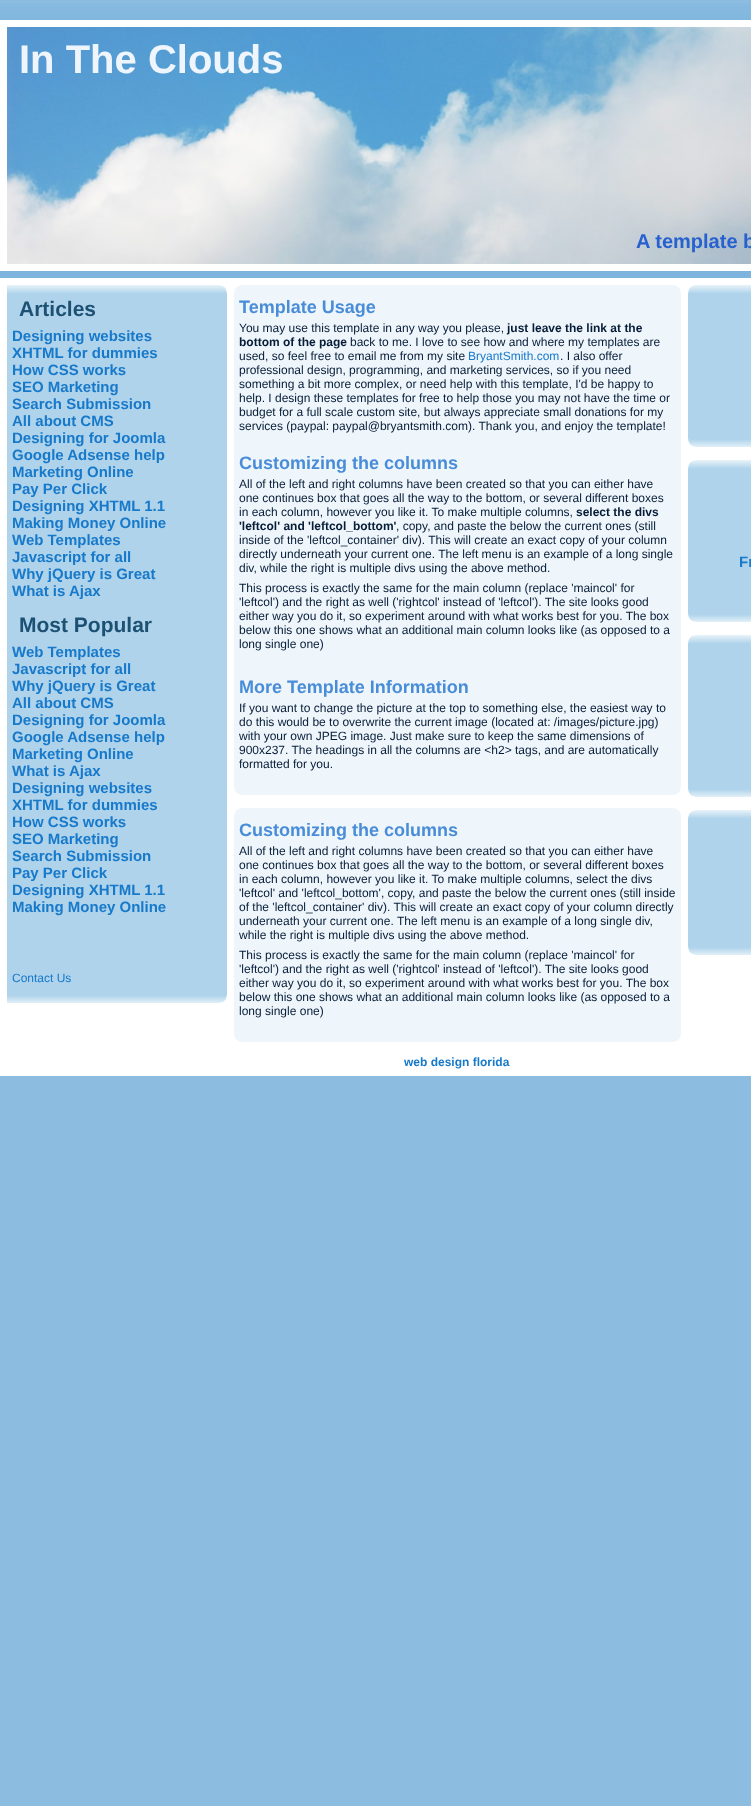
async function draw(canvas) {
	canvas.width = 751;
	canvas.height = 1806;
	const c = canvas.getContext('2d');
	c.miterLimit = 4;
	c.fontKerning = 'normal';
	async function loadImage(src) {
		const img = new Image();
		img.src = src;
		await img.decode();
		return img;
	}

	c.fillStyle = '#8cbde1';
	c.fillRect(0, 0, 751, 1806);
	c.drawImage(await loadImage('img1.png'), 0, 3, 751, 275);
	c.fillStyle = '#fff';
	c.fillRect(0, 20, 751, 251);
	c.drawImage(await loadImage('img2.png'), 7, 27, 744, 237);
	c.font = 'bold 40px Liberation Sans';
	c.fillStyle = '#eef5fd';
	c.fillText('In The Clouds', 19, 73);
	c.font = 'bold 20px Liberation Sans';
	c.fillStyle = '#2661ce';
	c.fillText('A template b', 636, 248);
	c.fillStyle = '#fff';
	c.fillRect(0, 278, 751, 798);
	c.fillStyle = '#afd3eb';
	c.fillRect(7, 294, 220, 696);
	c.drawImage(await loadImage('img3.png'), 7, 285, 220, 9);
	c.font = 'bold 21px Liberation Sans';
	c.fillStyle = '#1d5174';
	c.fillText('Articles', 19, 316);
	c.font = 'bold 15px Liberation Sans';
	c.fillStyle = '#1779ca';
	for (const [text, x, y] of [
		['Designing websites', 12, 341],
		['XHTML for dummies', 12, 358],
		['How CSS works', 12, 375],
		['SEO Marketing', 12, 392],
		['Search Submission', 12, 409],
		['All about CMS', 12, 426],
		['Designing for Joomla', 12, 443],
		['Google Adsense help', 12, 460],
		['Marketing Online', 12, 477],
		['Pay Per Click', 12, 494],
		['Designing XHTML 1.1', 12, 511],
		['Making Money Online', 12, 528],
		['Web Templates', 12, 545],
		['Javascript for all', 12, 562],
		['Why jQuery is Great', 12, 579],
		['What is Ajax', 12, 596],
	]) {
		c.fillText(text, x, y);
	}
	c.font = 'bold 21px Liberation Sans';
	c.fillStyle = '#1d5174';
	c.fillText('Most Popular', 19, 632);
	c.font = 'bold 15px Liberation Sans';
	c.fillStyle = '#1779ca';
	for (const [text, x, y] of [
		['Web Templates', 12, 657],
		['Javascript for all', 12, 674],
		['Why jQuery is Great', 12, 691],
		['All about CMS', 12, 708],
		['Designing for Joomla', 12, 725],
		['Google Adsense help', 12, 742],
		['Marketing Online', 12, 759],
		['What is Ajax', 12, 776],
		['Designing websites', 12, 793],
		['XHTML for dummies', 12, 810],
		['How CSS works', 12, 827],
		['SEO Marketing', 12, 844],
		['Search Submission', 12, 861],
		['Pay Per Click', 12, 878],
		['Designing XHTML 1.1', 12, 895],
		['Making Money Online', 12, 912],
	]) {
		c.fillText(text, x, y);
	}
	c.font = '12px Liberation Sans';
	c.fillText('Contact Us', 12, 982);
	c.drawImage(await loadImage('img4.png'), 7, 990, 220, 13);
	c.fillStyle = '#eef5fb';
	c.fillRect(234, 292, 447, 490);
	c.drawImage(await loadImage('img5.png'), 234, 285, 447, 7);
	c.font = 'bold 18px Liberation Sans';
	c.fillStyle = '#498dd8';
	c.fillText('Template Usage', 239, 313);
	c.font = '12px Liberation Sans';
	c.fillStyle = '#061c37';
	c.fillText('You may use this template in any way you please,', 239, 332);
	c.font = 'bold 12px Liberation Sans';
	c.fillText('just leave the link at the', 507, 332);
	c.fillText('bottom of the page', 239, 346);
	c.font = '12px Liberation Sans';
	c.fillText('back to me. I love to see how and where my templates are', 350, 346);
	c.fillText('used, so feel free to email me from my site', 239, 360);
	c.fillStyle = '#1779ca';
	c.fillText('BryantSmith.com', 468, 360);
	c.fillStyle = '#061c37';
	for (const [text, x, y] of [
		['. I also offer', 560, 360],
		['professional design, programming, and marketing services, so if you need', 239, 374],
		['something a bit more complex, or need help with this template, I\'d be happy to', 239, 388],
		['help. I design these templates for free to help those you may not have the time or', 239, 402],
		['budget for a full scale custom site, but always appreciate small donations for my', 239, 416],
		['services (paypal: paypal@bryantsmith.com). Thank you, and enjoy the template!', 239, 430],
	]) {
		c.fillText(text, x, y);
	}
	c.font = 'bold 18px Liberation Sans';
	c.fillStyle = '#498dd8';
	c.fillText('Customizing the columns', 239, 469);
	c.font = '12px Liberation Sans';
	c.fillStyle = '#061c37';
	for (const [text, x, y] of [
		['All of the left and right columns have been created so that you can either have', 239, 488],
		['one continues box that goes all the way to the bottom, or several different boxes', 239, 502],
		['in each column, however you like it. To make multiple columns,', 239, 516],
	]) {
		c.fillText(text, x, y);
	}
	c.font = 'bold 12px Liberation Sans';
	c.fillText('select the divs', 576, 516);
	c.fillText('\'leftcol\' and \'leftcol_bottom\'', 239, 530);
	c.font = '12px Liberation Sans';
	for (const [text, x, y] of [
		[', copy, and paste the below the current ones (still', 396, 530],
		['inside of the \'leftcol_container\' div). This will create an exact copy of your column', 239, 544],
		['directly underneath your current one. The left menu is an example of a long single', 239, 558],
		['div, while the right is multiple divs using the above method.', 239, 572],
		['This process is exactly the same for the main column (replace \'maincol\' for', 239, 592],
		['\'leftcol\') and the right as well (\'rightcol\' instead of \'leftcol\'). The site looks good', 239, 606],
		['either way you do it, so experiment around with what works best for you. The box', 239, 620],
		['below this one shows what an additional main column looks like (as opposed to a', 239, 634],
		['long single one)', 239, 648],
	]) {
		c.fillText(text, x, y);
	}
	c.font = 'bold 18px Liberation Sans';
	c.fillStyle = '#498dd8';
	c.fillText('More Template Information', 239, 693);
	c.font = '12px Liberation Sans';
	c.fillStyle = '#061c37';
	for (const [text, x, y] of [
		['If you want to change the picture at the top to something else, the easiest way to', 239, 712],
		['do this would be to overwrite the current image (located at: /images/picture.jpg)', 239, 726],
		['with your own JPEG image. Just make sure to keep the same dimensions of', 239, 740],
		['900x237. The headings in all the columns are <h2> tags, and are automatically', 239, 754],
		['formatted for you.', 239, 768],
	]) {
		c.fillText(text, x, y);
	}
	c.drawImage(await loadImage('img6.png'), 234, 782, 447, 13);
	c.fillStyle = '#eef5fb';
	c.fillRect(234, 815, 447, 214);
	c.drawImage(await loadImage('img5.png'), 234, 808, 447, 7);
	c.font = 'bold 18px Liberation Sans';
	c.fillStyle = '#498dd8';
	c.fillText('Customizing the columns', 239, 836);
	c.font = '12px Liberation Sans';
	c.fillStyle = '#061c37';
	for (const [text, x, y] of [
		['All of the left and right columns have been created so that you can either have', 239, 855],
		['one continues box that goes all the way to the bottom, or several different boxes', 239, 869],
		['in each column, however you like it. To make multiple columns, select the divs', 239, 883],
		['\'leftcol\' and \'leftcol_bottom\', copy, and paste the below the current ones (still inside', 239, 897],
		['of the \'leftcol_container\' div). This will create an exact copy of your column directly', 239, 911],
		['underneath your current one. The left menu is an example of a long single div,', 239, 925],
		['while the right is multiple divs using the above method.', 239, 939],
		['This process is exactly the same for the main column (replace \'maincol\' for', 239, 959],
		['\'leftcol\') and the right as well (\'rightcol\' instead of \'leftcol\'). The site looks good', 239, 973],
		['either way you do it, so experiment around with what works best for you. The box', 239, 987],
		['below this one shows what an additional main column looks like (as opposed to a', 239, 1001],
		['long single one)', 239, 1015],
	]) {
		c.fillText(text, x, y);
	}
	c.drawImage(await loadImage('img6.png'), 234, 1029, 447, 13);
	c.fillStyle = '#afd3eb';
	c.fillRect(688, 294, 63, 140);
	c.drawImage(await loadImage('img7.png'), 688, 285, 63, 9);
	c.drawImage(await loadImage('img8.png'), 688, 434, 63, 13);
	c.fillRect(688, 469, 63, 140);
	c.drawImage(await loadImage('img7.png'), 688, 460, 63, 9);
	c.font = 'bold 15px Liberation Sans';
	c.fillStyle = '#1779ca';
	c.fillText('Fr', 739, 567);
	c.drawImage(await loadImage('img8.png'), 688, 609, 63, 13);
	c.fillStyle = '#afd3eb';
	c.fillRect(688, 644, 63, 140);
	c.drawImage(await loadImage('img7.png'), 688, 635, 63, 9);
	c.drawImage(await loadImage('img8.png'), 688, 784, 63, 13);
	c.fillRect(688, 819, 63, 123);
	c.drawImage(await loadImage('img7.png'), 688, 810, 63, 9);
	c.drawImage(await loadImage('img8.png'), 688, 942, 63, 13);
	c.font = 'bold 12px Liberation Sans';
	c.fillStyle = '#1779ca';
	c.fillText('web design florida', 404, 1066);
}

draw(document.querySelector('canvas'));
